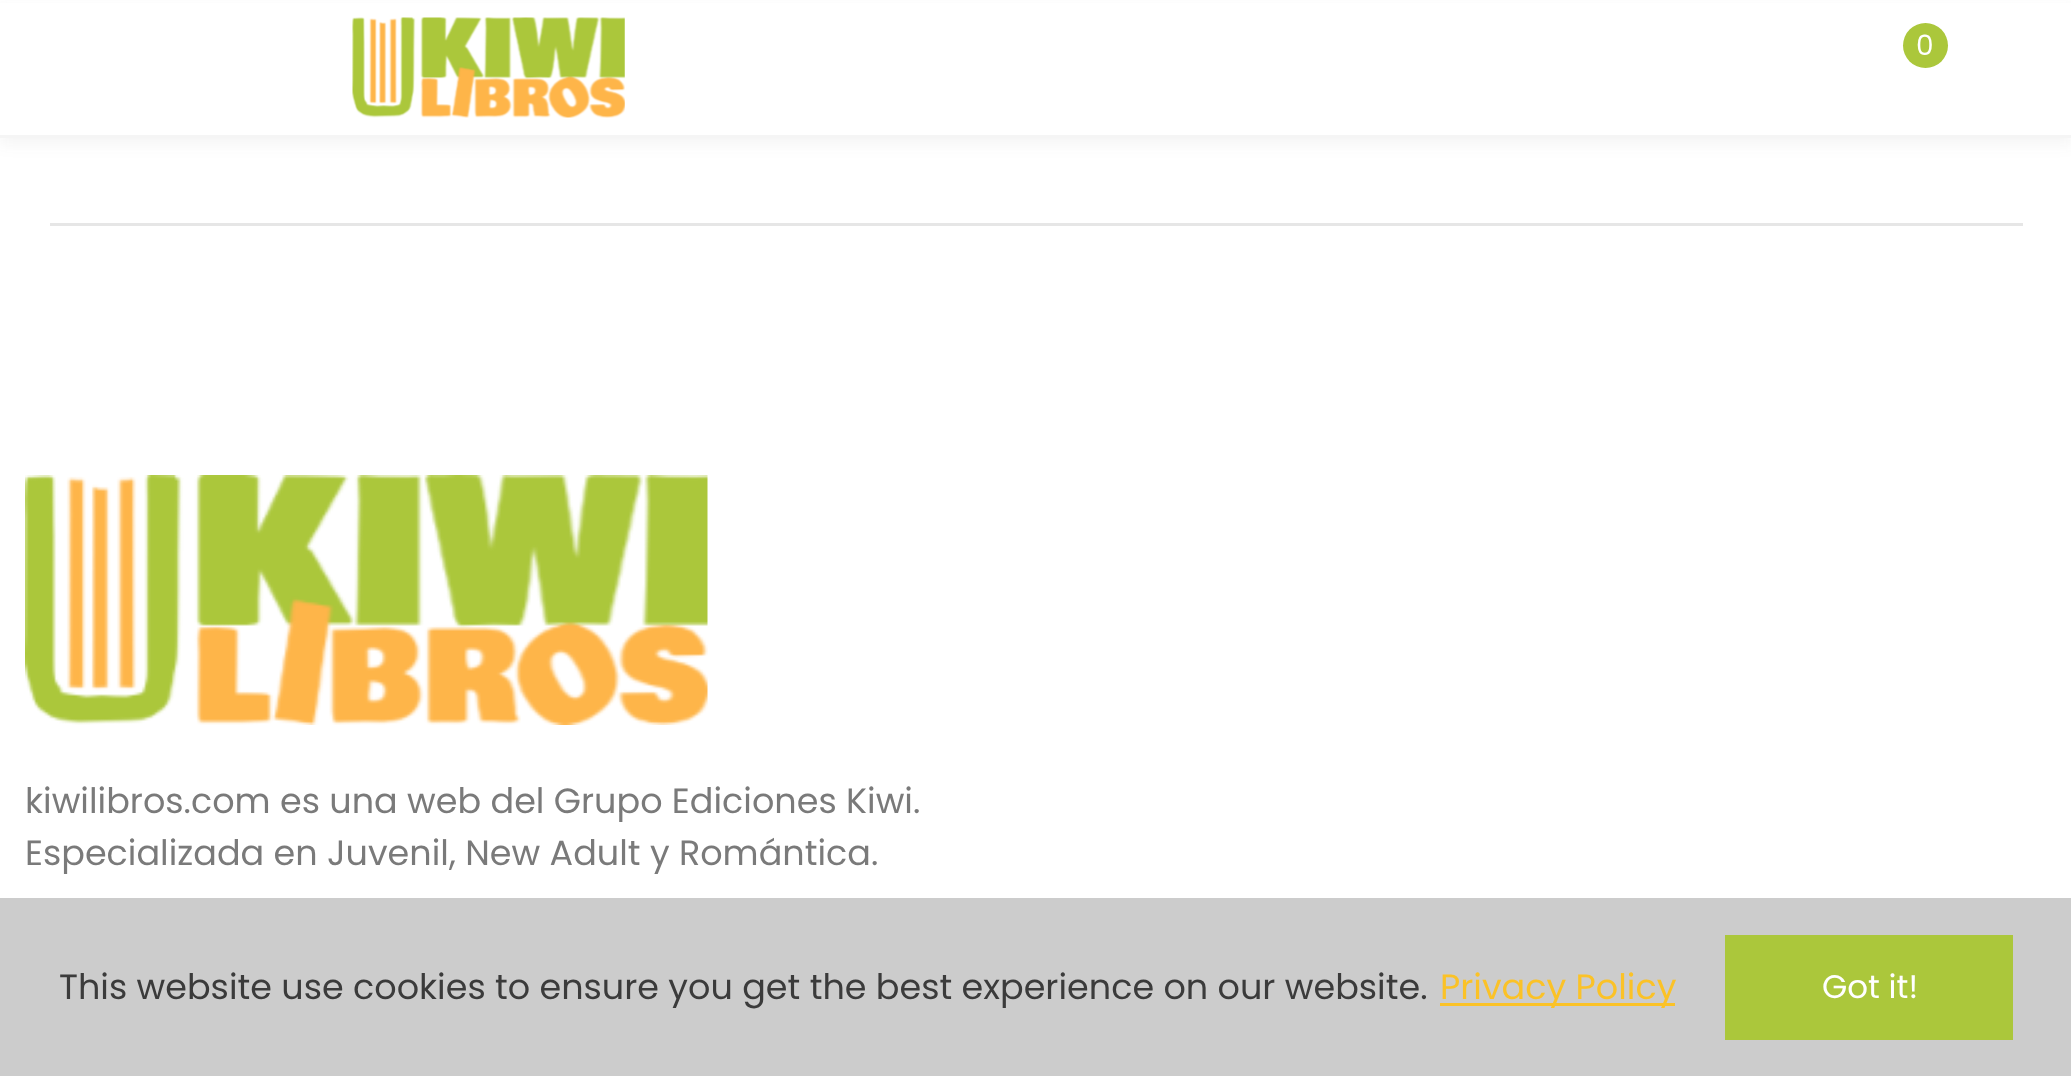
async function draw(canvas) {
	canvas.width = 2071;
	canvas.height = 1076;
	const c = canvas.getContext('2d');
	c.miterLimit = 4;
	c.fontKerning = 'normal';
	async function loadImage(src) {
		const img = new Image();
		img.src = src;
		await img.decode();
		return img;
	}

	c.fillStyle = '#fff';
	c.fillRect(0, 0, 2071, 1076);
	c.fillStyle = '#3333330d';
	c.filter = 'blur(7.5px)';
	c.beginPath();
	c.rect(0, 8, 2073, 137);
	c.fill();
	c.filter = 'none';
	c.fillStyle = '#fff';
	c.fillRect(0, 3, 2071, 132);
	c.fillStyle = '#f5f5f5';
	c.fillRect(0, 135, 2071, 3);
	c.drawImage(await loadImage('img1.png'), 352, 17, 273, 101);
	c.fillStyle = '#abc73b';
	c.beginPath();
	c.arc(1925.5, 45.5, 22.5, 0, 2 * Math.PI);
	c.fill();
	c.font = '28px Poppins';
	c.fillStyle = '#fff';
	c.fillText('0', 1916, 55);
	c.fillStyle = '#e6e6e6';
	c.fillRect(50, 223, 1973, 3);
	c.drawImage(await loadImage('img2.png'), 25, 475, 683, 250);
	c.font = '35px Poppins';
	c.fillStyle = '#7a7a7a';
	c.fillText('kiwilibros.com es una web del Grupo Ediciones Kiwi.', 25, 813);
	c.fillText('Especializada en Juvenil, New Adult y Romántica.', 25, 865);
	c.fillStyle = '#ccc';
	c.fillRect(0, 898, 2071, 178);
	c.fillStyle = '#3b3b3b';
	c.fillText('This website use cookies to ensure you get the best experience on our website.', 59, 999);
	c.fillStyle = '#fbc227';
	c.fillRect(1440, 1003, 235, 3);
	c.fillText('Privacy Policy', 1440, 999);
	c.fillStyle = '#abc73b';
	c.fillRect(1725, 935, 288, 105);
	c.font = '32.5px Poppins';
	c.fillStyle = '#fff';
	c.fillText('Got it!', 1822, 998);
}

draw(document.querySelector('canvas'));
